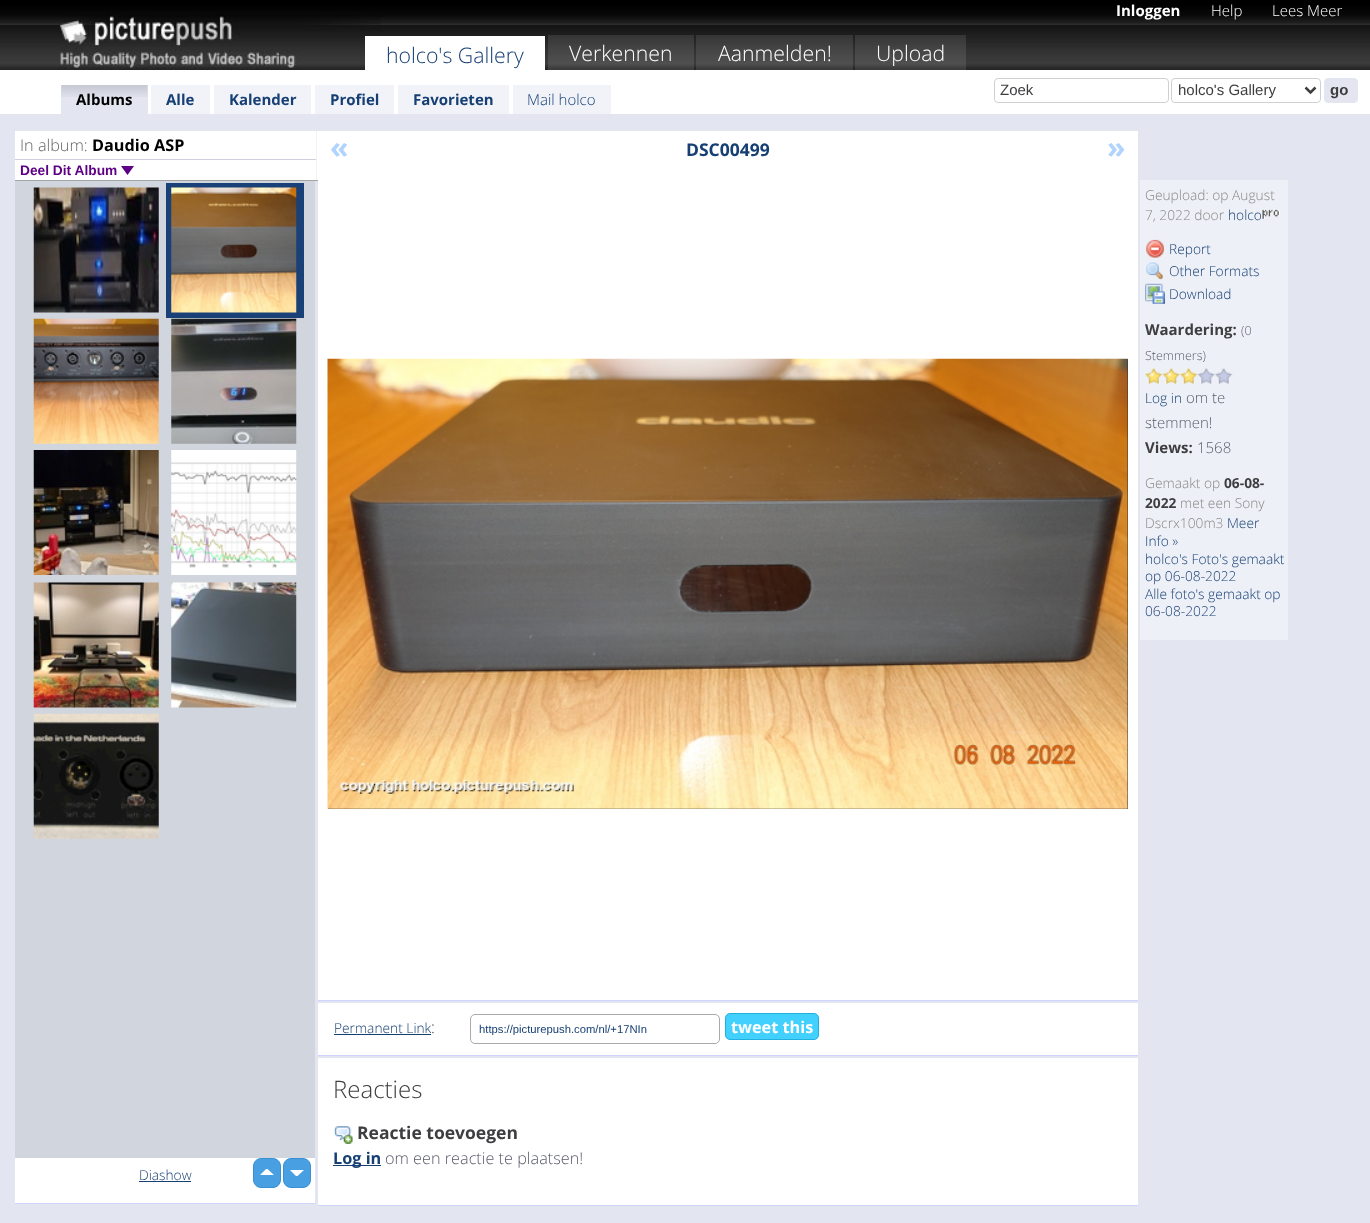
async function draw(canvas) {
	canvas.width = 1370;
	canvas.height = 1223;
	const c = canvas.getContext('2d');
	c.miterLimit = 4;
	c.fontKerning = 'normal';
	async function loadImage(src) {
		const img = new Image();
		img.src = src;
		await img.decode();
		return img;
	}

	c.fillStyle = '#e3e6f1';
	c.fillRect(0, 0, 1370, 1223);
	c.drawImage(await loadImage('img1.png'), 0, 0, 1370, 70);
	c.drawImage(await loadImage('img2.png'), 60, 13, 321, 57);
	c.fillStyle = '#fff';
	c.fillRect(365, 36, 180, 34);
	c.font = '300 21.25px Open Sans';
	c.fillStyle = '#163f73';
	c.fillText('holco\'s Gallery', 386, 63);
	c.fillStyle = '#ffffff1a';
	c.fillRect(548, 35, 146, 35);
	c.fillStyle = '#fff';
	c.fillText('Verkennen', 569, 61);
	c.fillStyle = '#ffffff1a';
	c.fillRect(696, 35, 157, 35);
	c.fillStyle = '#fff';
	c.fillText('Aanmelden!', 718, 61);
	c.fillStyle = '#ffffff1a';
	c.fillRect(855, 35, 111, 35);
	c.fillStyle = '#fff';
	c.fillText('Upload', 876, 61);
	c.font = 'bold 15px Open Sans';
	c.fillText('Inloggen', 1116, 16);
	c.font = '300 15px Open Sans';
	c.fillText('Help', 1211, 16);
	c.fillText('Lees Meer', 1272, 16);
	c.fillRect(0, 70, 1370, 44);
	c.fillStyle = '#e3e6f1';
	c.fillRect(61, 85, 87, 29);
	c.drawImage(await loadImage('img3.png'), 61, 85, 87, 12);
	c.font = 'bold 15px Open Sans';
	c.fillStyle = '#000';
	c.fillText('Albums', 76, 105);
	c.fillStyle = '#f1f3f9';
	c.fillRect(151, 85, 59, 29);
	c.fillStyle = '#163f73';
	c.fillText('Alle', 166, 105);
	c.fillStyle = '#f1f3f9';
	c.fillRect(214, 85, 97, 29);
	c.fillStyle = '#163f73';
	c.fillText('Kalender', 229, 105);
	c.fillStyle = '#f1f3f9';
	c.fillRect(315, 85, 79, 29);
	c.fillStyle = '#163f73';
	c.fillText('Profiel', 330, 105);
	c.fillStyle = '#f1f3f9';
	c.fillRect(398, 85, 111, 29);
	c.fillStyle = '#163f73';
	c.fillText('Favorieten', 413, 105);
	c.fillStyle = '#f1f3f9';
	c.fillRect(513, 85, 98, 29);
	c.font = '300 15px Open Sans';
	c.fillStyle = '#163f73';
	c.fillText('Mail holco', 527, 105);
	c.beginPath();
	c.roundRect(994.5, 78.5, 174, 24, 3.5);
	c.strokeStyle = '#d0d0d0';
	c.stroke();
	c.font = '15px Liberation Sans';
	c.fillStyle = '#3e3e41';
	c.fillText('Zoek', 1000, 95);
	c.beginPath();
	c.roundRect(1171.5, 78.5, 149, 24, 3.5);
	c.stroke();
	c.beginPath();
	c.moveTo(1305.5, 87.5);
	c.lineTo(1310.5, 92.5);
	c.lineTo(1315.5, 87.5);
	c.strokeStyle = '#3e3e3e';
	c.lineWidth = 2.5;
	c.stroke();
	c.fillText('holco\'s Gallery', 1178, 95);
	c.fillStyle = '#e3e6f1';
	c.beginPath();
	c.roundRect(1324.5, 78.5, 33, 24, 3.5);
	c.fill();
	c.strokeStyle = '#e3e6f1';
	c.lineWidth = 1;
	c.stroke();
	c.font = 'bold 15px Liberation Sans';
	c.fillStyle = '#3e3e41';
	c.fillText('go', 1330, 95);
	for (const [x, y, w, h, color] of [
		[15, 131, 303, 49, '#fff'],
		[316, 131, 1, 50, '#f3f3f3'],
		[15, 180, 303, 1, '#a4a4a4'],
	]) {
		c.fillStyle = color;
		c.fillRect(x, y, w, h);
	}
	c.font = '300 16.25px Open Sans';
	c.fillStyle = '#666';
	c.fillText('In album:', 20, 151);
	c.font = 'bold 16.25px Open Sans';
	c.fillStyle = '#000';
	c.fillText('Daudio ASP', 92, 151);
	c.fillStyle = '#d0d0e0';
	c.fillRect(15, 159, 301, 1);
	c.font = 'bold 13.75px Liberation Sans';
	c.fillStyle = '#5e0085';
	c.fillText('Deel Dit Album', 20, 175);
	c.beginPath();
	c.moveTo(121, 166);
	c.lineTo(134, 166);
	c.lineTo(127.5, 175);
	c.closePath();
	c.fill();
	c.fillStyle = '#d1d5dd';
	c.fillRect(15, 181, 300, 977);
	c.fillStyle = '#cfd4ff';
	c.fillRect(15, 1203, 300, 1);
	c.drawImage(await loadImage('img4.png'), 33, 187, 126, 126);
	c.fillStyle = '#194077';
	c.fillRect(166, 183, 138, 135);
	c.drawImage(await loadImage('img5.png'), 171, 187, 126, 126);
	c.drawImage(await loadImage('img6.png'), 33, 318, 126, 126);
	c.drawImage(await loadImage('img7.png'), 171, 318, 126, 126);
	c.drawImage(await loadImage('img8.png'), 33, 450, 126, 125);
	c.drawImage(await loadImage('img9.png'), 171, 450, 126, 125);
	c.drawImage(await loadImage('img10.png'), 33, 582, 126, 126);
	c.drawImage(await loadImage('img11.png'), 171, 582, 126, 126);
	c.drawImage(await loadImage('img12.png'), 33, 713, 126, 126);
	c.fillStyle = '#fff';
	c.fillRect(15, 1158, 300, 45);
	c.fillStyle = '#48a0e3';
	c.beginPath();
	c.roundRect(253.5, 1158.5, 27, 29, 7.5);
	c.fill();
	c.strokeStyle = '#3890d3';
	c.stroke();
	c.beginPath();
	c.roundRect(283.5, 1158.5, 27, 29, 7.5);
	c.fill();
	c.stroke();
	c.fillStyle = '#fff';
	c.beginPath();
	c.moveTo(274, 1175);
	c.lineTo(260, 1175);
	c.lineTo(266, 1169);
	c.lineTo(267.5, 1169);
	c.closePath();
	c.moveTo(290, 1170);
	c.lineTo(304, 1170);
	c.lineTo(297.5, 1176);
	c.lineTo(296, 1176);
	c.closePath();
	c.fill();
	c.font = '300 13.75px Open Sans';
	c.fillStyle = '#163f73';
	c.fillText('Diashow', 139, 1180);
	for (const [x, y, w, h, color] of [
		[139, 1181, 52, 1, '#163f73'],
		[318, 131, 820, 869, '#fff'],
		[318, 1000, 820, 1, '#cfd4ff'],
	]) {
		c.fillStyle = color;
		c.fillRect(x, y, w, h);
	}
	c.font = 'bold 30px Open Sans';
	c.fillStyle = '#b0d4fe';
	c.fillText('«', 330, 158);
	c.font = 'bold 17.5px Open Sans';
	c.fillStyle = '#163f73';
	c.fillText('DSC00499', 686, 156);
	c.font = 'bold 30px Open Sans';
	c.fillStyle = '#b0d4fe';
	c.fillText('»', 1107, 158);
	c.fillStyle = '#333';
	c.fillRect(328, 359, 800, 450);
	c.drawImage(await loadImage('img13.png'), 327, 358, 801, 451);
	c.fillStyle = '#eef0f7';
	c.fillRect(1140, 180, 148, 460);
	c.font = '300 13.75px Open Sans';
	c.fillStyle = '#888';
	c.fillText('Geupload: op August', 1145, 200);
	c.fillText('7, 2022 door', 1145, 220);
	c.fillStyle = '#163f73';
	c.fillText('holco', 1228, 220);
	c.drawImage(await loadImage('img14.png'), 1262, 209, 18, 10);
	c.drawImage(await loadImage('img15.png'), 1146, 239, 18, 19);
	c.fillText('Report', 1169, 254);
	c.drawImage(await loadImage('img16.png'), 1146, 262, 17, 18);
	c.fillText('Other Formats', 1169, 276);
	c.drawImage(await loadImage('img17.png'), 1145, 283, 20, 21);
	c.fillText('Download', 1169, 299);
	c.font = 'bold 15px Open Sans';
	c.fillStyle = '#3e3e41';
	c.fillText('Waardering:', 1145, 335);
	c.font = '300 12.5px Open Sans';
	c.fillStyle = '#5a5c6c';
	c.fillText('(0', 1241, 335);
	c.fillText('Stemmers)', 1145, 360);
	c.drawImage(await loadImage('img18.png'), 1145, 367, 18, 17);
	c.drawImage(await loadImage('img19.png'), 1162, 367, 18, 17);
	c.drawImage(await loadImage('img20.png'), 1180, 367, 18, 17);
	c.drawImage(await loadImage('img21.png'), 1197, 368, 18, 16);
	c.drawImage(await loadImage('img22.png'), 1215, 368, 18, 16);
	c.font = '300 13.75px Open Sans';
	c.fillStyle = '#163f73';
	c.fillText('Log in', 1145, 403);
	c.font = '300 15px Open Sans';
	c.fillStyle = '#5a5c6c';
	c.fillText('om te', 1186, 403);
	c.fillText('stemmen!', 1145, 428);
	c.font = 'bold 15px Open Sans';
	c.fillStyle = '#3e3e41';
	c.fillText('Views:', 1145, 453);
	c.font = '300 15px Open Sans';
	c.fillStyle = '#5a5c6c';
	c.fillText('1568', 1197, 453);
	c.font = '300 13.75px Open Sans';
	c.fillStyle = '#888';
	c.fillText('Gemaakt op', 1145, 488);
	c.font = 'bold 13.75px Open Sans';
	c.fillStyle = '#3e3e41';
	c.fillText('06-08-', 1224, 488);
	c.fillText('2022', 1145, 508);
	c.font = '300 13.75px Open Sans';
	c.fillStyle = '#888';
	c.fillText('met een Sony', 1180, 508);
	c.fillText('Dscrx100m3', 1145, 528);
	c.fillStyle = '#163f73';
	for (const [text, x, y] of [
		['Meer', 1227, 528],
		['Info »', 1145, 546],
		['holco\'s Foto\'s gemaakt', 1145, 564],
		['op 06-08-2022', 1145, 581],
		['Alle foto\'s gemaakt op', 1145, 599],
		['06-08-2022', 1145, 616],
	]) {
		c.fillText(text, x, y);
	}
	c.fillStyle = '#fff';
	c.fillRect(318, 1003, 820, 52);
	c.fillStyle = '#cfd4ff';
	c.fillRect(318, 1055, 820, 1);
	c.fillStyle = '#163f73';
	c.fillText('Permanent Link', 334, 1033);
	c.fillRect(334, 1034, 97, 1);
	c.font = '300 16.25px Open Sans';
	c.fillStyle = '#3e3e41';
	c.fillText(':', 431, 1033);
	c.beginPath();
	c.roundRect(470.5, 1014.5, 249, 29, 4.5);
	c.strokeStyle = '#aaa';
	c.stroke();
	c.save();
	c.beginPath();
	c.rect(479, 1023, 232, 12);
	c.clip();
	c.font = '11.25px Liberation Sans';
	c.fillStyle = '#163f73';
	c.fillText('https://picturepush.com/nl/+17NIn', 479, 1033);
	c.restore();
	c.fillStyle = '#42d0ff';
	c.beginPath();
	c.roundRect(725.5, 1013.5, 93, 26, 4.5);
	c.fill();
	c.strokeStyle = '#22b0df';
	c.stroke();
	c.font = 'bold 16.25px Open Sans';
	c.fillStyle = '#fff';
	c.fillText('tweet this', 731, 1033);
	c.fillRect(318, 1058, 820, 147);
	c.fillStyle = '#cfd4ff';
	c.fillRect(318, 1205, 820, 1);
	c.font = '300 24px Open Sans';
	c.fillStyle = '#3e3e41';
	c.fillText('Reacties', 333, 1098);
	c.drawImage(await loadImage('img23.png'), 333, 1126, 20, 18);
	c.font = 'bold 17.5px Open Sans';
	c.fillText('Reactie toevoegen', 357, 1139);
	c.fillStyle = '#163f73';
	c.fillRect(333, 1165, 48, 1);
	c.font = 'bold 16.25px Open Sans';
	c.fillText('Log in', 333, 1164);
	c.font = '300 16.25px Open Sans';
	c.fillStyle = '#5a5c6c';
	c.fillText('om een reactie te plaatsen!', 385, 1164);
}

draw(document.querySelector('canvas'));
